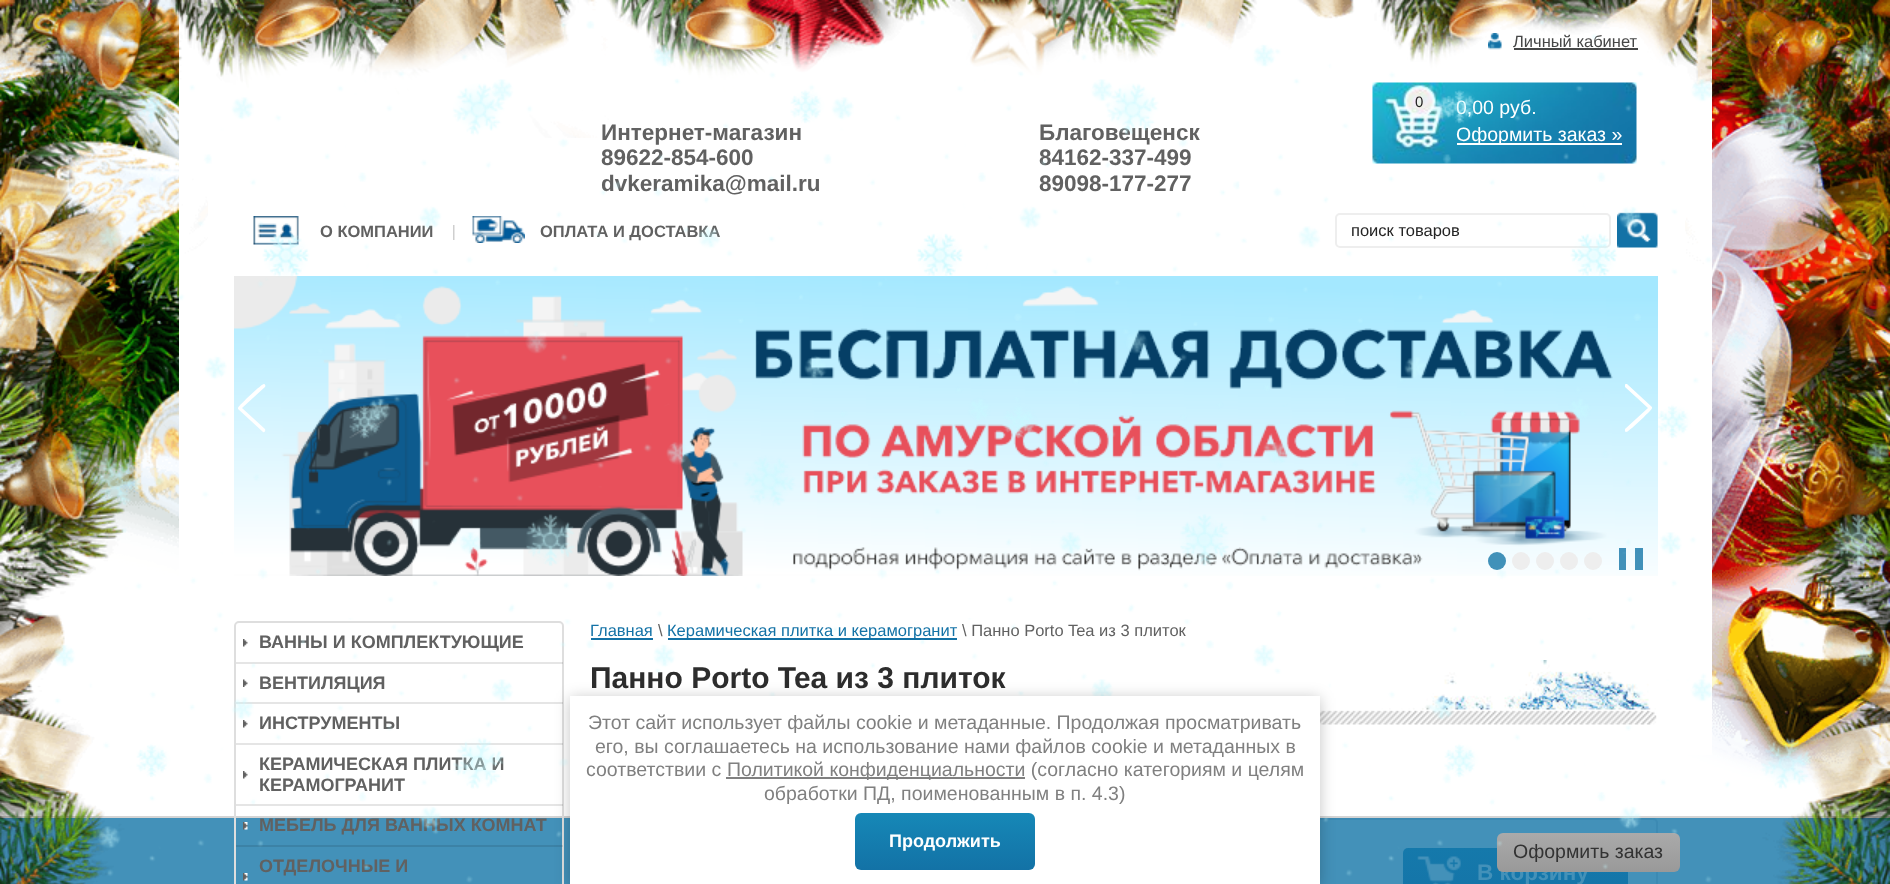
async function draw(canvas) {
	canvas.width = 1890;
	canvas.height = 884;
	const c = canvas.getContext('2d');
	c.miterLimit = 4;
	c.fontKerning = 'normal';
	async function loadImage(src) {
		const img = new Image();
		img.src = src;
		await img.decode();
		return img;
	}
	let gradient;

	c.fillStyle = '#fff';
	c.fillRect(0, 0, 1890, 884);
	c.fillStyle = '#4391b9';
	c.fillRect(0, 818, 1890, 66);
	c.drawImage(await loadImage('img1.png'), 0, 0, 1890, 783);
	c.fillStyle = '#fff';
	c.fillRect(179, 0, 1533, 755);
	c.drawImage(await loadImage('img7.png'), 178, 0, 1534, 138);
	c.filter = 'blur(11px)';
	c.beginPath();
	c.rect(227, 53, 1438, 60);
	c.fill();
	c.filter = 'none';
	c.fillStyle = '#d4d4d4';
	c.fillRect(0, 816, 1890, 2);
	c.drawImage(await loadImage('img5.png'), 0, 0, 208, 884);
	c.drawImage(await loadImage('img6.png'), 1685, 0, 205, 884);
	c.font = 'bold 22.5px Liberation Sans';
	c.fillStyle = '#616161';
	for (const [text, x, y] of [
		['Интернет-магазин', 601, 140],
		['89622-854-600', 601, 165],
		['dvkeramika@mail.ru', 601, 191],
		['Благовещенск', 1039, 140],
		['84162-337-499', 1039, 165],
		['89098-177-277', 1039, 191],
	]) {
		c.fillText(text, x, y);
	}
	c.drawImage(await loadImage('img9.png'), 1372, 82, 265, 82);
	c.font = '15px Liberation Sans';
	c.fillStyle = '#242424';
	c.fillText('0', 1415, 107);
	c.font = '19.5px Liberation Sans';
	c.fillStyle = '#fff';
	c.fillText('0,00 руб.', 1456, 114);
	c.fillRect(1457, 143, 165, 2);
	c.fillText('Оформить заказ »', 1456, 141);
	c.drawImage(await loadImage('img10.png'), 253, 216, 46, 29);
	c.font = 'bold 16.5px Liberation Sans';
	c.fillStyle = '#616161';
	c.fillText('О КОМПАНИИ', 320, 237);
	c.drawImage(await loadImage('img11.png'), 453, 225, 2, 15);
	c.drawImage(await loadImage('img12.png'), 472, 216, 53, 27);
	c.fillText('ОПЛАТА И ДОСТАВКА', 540, 237);
	c.beginPath();
	c.roundRect(1336, 214, 274, 33, 4);
	c.strokeStyle = '#eee';
	c.lineWidth = 2;
	c.stroke();
	c.save();
	c.beginPath();
	c.rect(1352, 221, 244, 18);
	c.clip();
	c.font = '16.5px Liberation Sans';
	c.fillStyle = '#242424';
	c.fillText('поиск товаров', 1351, 236);
	c.restore();
	c.drawImage(await loadImage('img13.png'), 1617, 212, 41, 36);
	c.drawImage(await loadImage('img14.png'), 234, 276, 1424, 300);
	c.fillStyle = '#fff';
	c.beginPath();
	c.moveTo(238, 409);
	c.lineTo(263, 432);
	c.bezierCurveTo(264, 433, 266, 431, 265, 429);
	c.lineTo(242, 408);
	c.lineTo(265, 387);
	c.bezierCurveTo(266, 386, 265, 384, 264, 384);
	c.bezierCurveTo(262, 384, 259, 388, 258, 388);
	c.lineTo(246, 399);
	c.bezierCurveTo(246, 400, 238, 406, 238, 408);
	c.closePath();
	c.fill('evenodd');
	c.save();
	c.beginPath();
	c.rect(1625, 384, 28, 48);
	c.clip();
	c.beginPath();
	c.moveTo(1652, 407);
	c.lineTo(1627, 384);
	c.bezierCurveTo(1626, 383, 1624, 385, 1625, 387);
	c.lineTo(1648, 408);
	c.lineTo(1625, 429);
	c.bezierCurveTo(1624, 430, 1625, 432, 1626, 432);
	c.bezierCurveTo(1628, 432, 1631, 428, 1632, 428);
	c.lineTo(1644, 417);
	c.bezierCurveTo(1644, 416, 1652, 410, 1652, 408);
	c.closePath();
	c.fill('evenodd');
	c.restore();
	c.fillStyle = '#1475a8cc';
	c.beginPath();
	c.arc(1497, 561, 9, 0, 2 * Math.PI);
	c.fill();
	c.fillStyle = '#eee';
	c.beginPath();
	c.arc(1521, 561, 9, 0, 2 * Math.PI);
	c.fill();
	c.beginPath();
	c.arc(1545, 561, 9, 0, 2 * Math.PI);
	c.fill();
	c.beginPath();
	c.arc(1569, 561, 9, 0, 2 * Math.PI);
	c.fill();
	c.beginPath();
	c.arc(1593, 561, 9, 0, 2 * Math.PI);
	c.fill();
	c.fillStyle = '#1475a8cc';
	c.fillRect(1635, 548, 8, 22);
	c.fillRect(1619, 548, 7, 22);
	c.beginPath();
	c.roundRect(235, 622, 328, 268, 4);
	c.strokeStyle = '#dedede';
	c.stroke();
	c.fillStyle = '#0000001a';
	c.fillRect(236, 662, 327, 2);
	c.drawImage(await loadImage('img15.png'), 243, 639, 5, 8);
	c.font = 'bold 18px Liberation Sans';
	c.fillStyle = '#616161';
	c.fillText('ВАННЫ И КОМПЛЕКТУЮЩИЕ', 259, 648);
	c.fillStyle = '#0000001a';
	c.fillRect(236, 702, 327, 2);
	c.drawImage(await loadImage('img16.png'), 243, 679, 5, 8);
	c.fillStyle = '#616161';
	c.fillText('ВЕНТИЛЯЦИЯ', 259, 689);
	c.fillStyle = '#0000001a';
	c.fillRect(236, 743, 327, 2);
	c.drawImage(await loadImage('img15.png'), 243, 720, 5, 8);
	c.fillStyle = '#616161';
	c.fillText('ИНСТРУМЕНТЫ', 259, 729);
	c.drawImage(await loadImage('img15.png'), 243, 771, 5, 8);
	c.fillText('КЕРАМИЧЕСКАЯ ПЛИТКА И', 259, 770);
	c.fillText('КЕРАМОГРАНИТ', 259, 791);
	c.font = '16.5px Liberation Sans';
	c.fillStyle = '#1372a6';
	c.fillText('Главная', 590, 636);
	c.fillRect(591, 638, 62, 2);
	c.fillStyle = '#616161';
	c.fillText('\\', 658, 636);
	c.fillStyle = '#1372a6';
	c.fillRect(668, 638, 289, 2);
	c.fillText('Керамическая плитка и керамогранит', 667, 636);
	c.fillStyle = '#616161';
	c.fillText('\\ Панно Porto Tea из 3 плиток', 962, 636);
	c.drawImage(await loadImage('img18.png'), 1320, 660, 337, 65);
	c.font = 'bold 30px Liberation Sans';
	c.fillStyle = '#2d2d2d';
	c.fillText('Панно Porto Tea из 3 плиток', 590, 688);
	c.drawImage(await loadImage('img4.png'), 89, 83, 1794, 706);
	c.drawImage(await loadImage('img8.png'), 1488, 33, 14, 17);
	c.font = '16.5px Liberation Sans';
	c.fillStyle = '#464747';
	c.fillText('Личный кабинет', 1513, 47);
	for (const [x, y, w, h, color] of [
		[1514, 48, 124, 2, '#464747'],
		[236, 804, 327, 2, '#0000001a'],
		[236, 845, 327, 2, '#0000001a'],
	]) {
		c.fillStyle = color;
		c.fillRect(x, y, w, h);
	}
	c.drawImage(await loadImage('img17.png'), 243, 822, 5, 8);
	c.font = 'bold 18px Liberation Sans';
	c.fillStyle = '#616161';
	c.fillText('МЕБЕЛЬ ДЛЯ ВАННЫХ КОМНАТ', 259, 831);
	c.beginPath();
	c.roundRect(996, 819, 661, 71, 4);
	c.strokeStyle = '#3c8ab3';
	c.stroke();
	gradient = c.createLinearGradient(1515, 848, 1515, 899);
	gradient.addColorStop(0, '#1579ab');
	gradient.addColorStop(1, '#1474a8');
	c.fillStyle = gradient;
	c.beginPath();
	c.roundRect(1403, 848, 225, 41, 5);
	c.fill();
	c.font = 'bold 22.5px Liberation Sans';
	c.fillStyle = '#4391b9';
	c.fillText('В корзину', 1477, 880);
	gradient = c.createLinearGradient(1589, 833, 1589, 872);
	gradient.addColorStop(0, '#aaa');
	gradient.addColorStop(1, '#999');
	c.fillStyle = gradient;
	c.beginPath();
	c.roundRect(1497, 833, 183, 39, 6);
	c.fill();
	c.font = '19.5px Liberation Sans';
	c.fillStyle = '#333';
	c.fillText('Оформить заказ', 1513, 858);
	c.drawImage(await loadImage('img3.png'), 53, 44, 1836, 805);
	c.drawImage(await loadImage('img17.png'), 243, 873, 5, 8);
	c.font = 'bold 18px Liberation Sans';
	c.fillStyle = '#616161';
	c.fillText('ОТДЕЛОЧНЫЕ И', 259, 872);
	c.drawImage(await loadImage('img19.png'), 1417, 856, 44, 28);
	c.drawImage(await loadImage('img2.png'), 0, 0, 1890, 883);
	c.fillStyle = '#0000003b';
	c.filter = 'blur(7.5px)';
	c.beginPath();
	c.rect(570, 698, 750, 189);
	c.fill();
	c.filter = 'none';
	c.fillStyle = '#fff';
	c.fillRect(570, 696, 750, 188);
	c.font = '19.5px Liberation Sans';
	c.fillStyle = '#808080';
	for (const [text, x, y] of [
		['Этот сайт использует файлы cookie и метаданные. Продолжая просматривать', 588, 729],
		['его, вы соглашаетесь на использование нами файлов cookie и метаданных в', 595, 753],
		['соответствии с', 586, 776],
	]) {
		c.fillText(text, x, y);
	}
	c.fillRect(726, 777, 299, 2);
	c.fillText('Политикой конфиденциальности (согласно категориям и целям', 727, 776);
	c.fillText('обработки ПД, поименованным в п. 4.3)', 764, 800);
	gradient = c.createLinearGradient(945, 813, 945, 870);
	gradient.addColorStop(0, '#1688b7');
	gradient.addColorStop(1, '#1372a6');
	c.fillStyle = gradient;
	c.beginPath();
	c.roundRect(855, 813, 180, 57, 6);
	c.fill();
	c.font = 'bold 18px Liberation Sans';
	c.fillStyle = '#fff';
	c.fillText('Продолжить', 889, 847);
}

draw(document.querySelector('canvas'));
